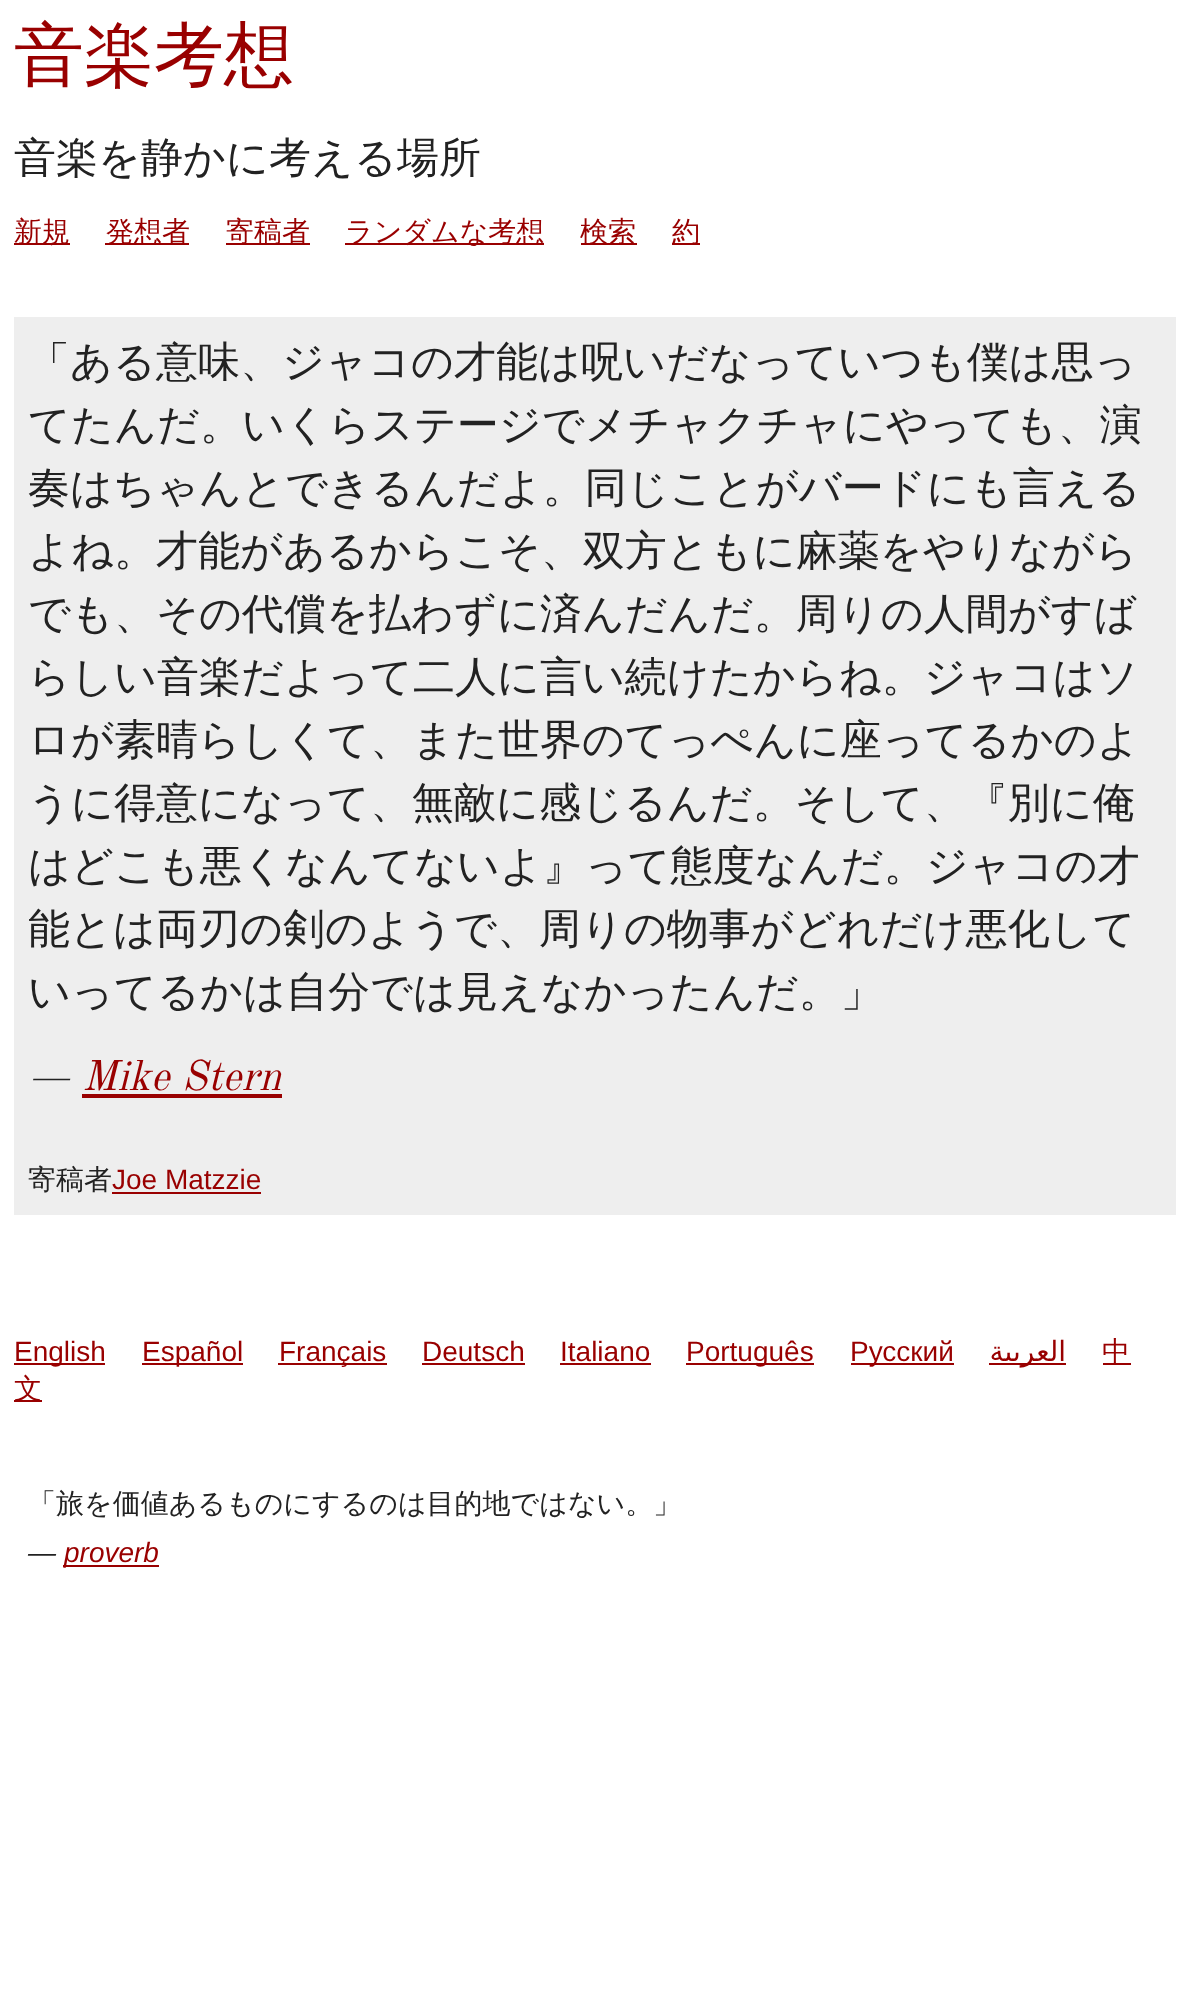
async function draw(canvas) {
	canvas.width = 1189;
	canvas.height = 2002;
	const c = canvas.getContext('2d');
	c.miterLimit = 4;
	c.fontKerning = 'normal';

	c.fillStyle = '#fff';
	c.fillRect(0, 0, 1189, 2002);
	c.font = '500 70px WenQuanYi Zen Hei';
	c.fillStyle = '#900';
	c.fillText('音楽考想', 14, 79);
	c.font = '500 42px WenQuanYi Zen Hei';
	c.fillStyle = '#222';
	c.fillText('音楽を静かに考える場所', 14, 172);
	c.fillStyle = '#900';
	c.fillRect(14, 243, 56, 2);
	c.font = '500 28px WenQuanYi Zen Hei';
	c.fillText('新規', 14, 241);
	c.fillRect(105, 243, 84, 2);
	c.fillText('発想者', 106, 241);
	c.fillRect(226, 243, 84, 2);
	c.fillText('寄稿者', 226, 241);
	c.fillRect(345, 243, 199, 2);
	c.fillText('ランダムな考想', 345, 241);
	c.fillRect(581, 243, 56, 2);
	c.fillText('検索', 580, 241);
	c.fillRect(672, 243, 28, 2);
	c.fillText('約', 672, 241);
	c.fillStyle = '#eee';
	c.fillRect(14, 317, 1162, 898);
	c.font = '500 42px WenQuanYi Zen Hei';
	c.fillStyle = '#222';
	for (const [text, x, y] of [
		['「ある意味、ジャコの才能は呪いだなっていつも僕は思っ', 28, 376],
		['てたんだ。いくらステージでメチャクチャにやっても、演', 28, 439],
		['奏はちゃんとできるんだよ。同じことがバードにも言える', 28, 502],
		['よね。才能があるからこそ、双方ともに麻薬をやりながら', 28, 565],
		['でも、その代償を払わずに済んだんだ。周りの人間がすば', 28, 628],
		['らしい音楽だよって二人に言い続けたからね。ジャコはソ', 28, 691],
		['ロが素晴らしくて、また世界のてっぺんに座ってるかのよ', 28, 754],
		['うに得意になって、無敵に感じるんだ。そして、『別に俺', 28, 817],
		['はどこも悪くなんてないよ』って態度なんだ。ジャコの才', 28, 880],
		['能とは両刃の剣のようで、周りの物事がどれだけ悪化して', 28, 943],
		['いってるかは自分では見えなかったんだ。」', 28, 1006],
	]) {
		c.fillText(text, x, y);
	}
	c.font = 'italic 42px Old Standard TT';
	c.fillText('—', 28, 1090);
	c.fillStyle = '#900';
	c.fillText('Mike Stern', 82, 1090);
	c.fillRect(82, 1094, 200, 4);
	c.font = '500 28px WenQuanYi Zen Hei';
	c.fillStyle = '#222';
	c.fillText('寄稿者', 28, 1189);
	c.font = '28px Liberation Sans';
	c.fillStyle = '#900';
	c.fillText('Joe Matzzie', 112, 1189);
	c.fillRect(112, 1192, 149, 2);
	c.fillRect(14, 1363, 91, 2);
	c.fillText('English', 14, 1361);
	c.fillRect(142, 1363, 101, 2);
	c.fillText('Español', 142, 1361);
	c.fillRect(278, 1363, 109, 2);
	c.fillText('Français', 279, 1361);
	c.fillText('Deutsch', 422, 1361);
	c.fillRect(422, 1363, 103, 2);
	c.fillText('Italiano', 560, 1361);
	c.fillRect(560, 1363, 91, 2);
	c.fillRect(686, 1363, 128, 2);
	c.fillText('Português', 686, 1361);
	c.fillRect(851, 1363, 103, 2);
	c.fillText('Русский', 850, 1361);
	c.fillRect(989, 1363, 77, 2);
	c.direction = 'rtl';
	c.font = '28px DejaVu Sans';
	c.fillText('العربية', 1066, 1361);
	c.fillRect(1103, 1363, 28, 2);
	c.direction = 'ltr';
	c.font = '500 28px WenQuanYi Zen Hei';
	c.fillText('中', 1102, 1361);
	c.fillRect(14, 1400, 28, 2);
	c.fillText('文', 14, 1398);
	c.fillStyle = '#222';
	c.fillText('「旅を価値あるものにするのは目的地ではない。」', 28, 1513);
	c.font = 'italic 28px Liberation Sans';
	c.fillText('—', 28, 1562);
	c.fillStyle = '#900';
	c.fillRect(63, 1565, 96, 2);
	c.fillText('proverb', 64, 1562);
}

draw(document.querySelector('canvas'));
